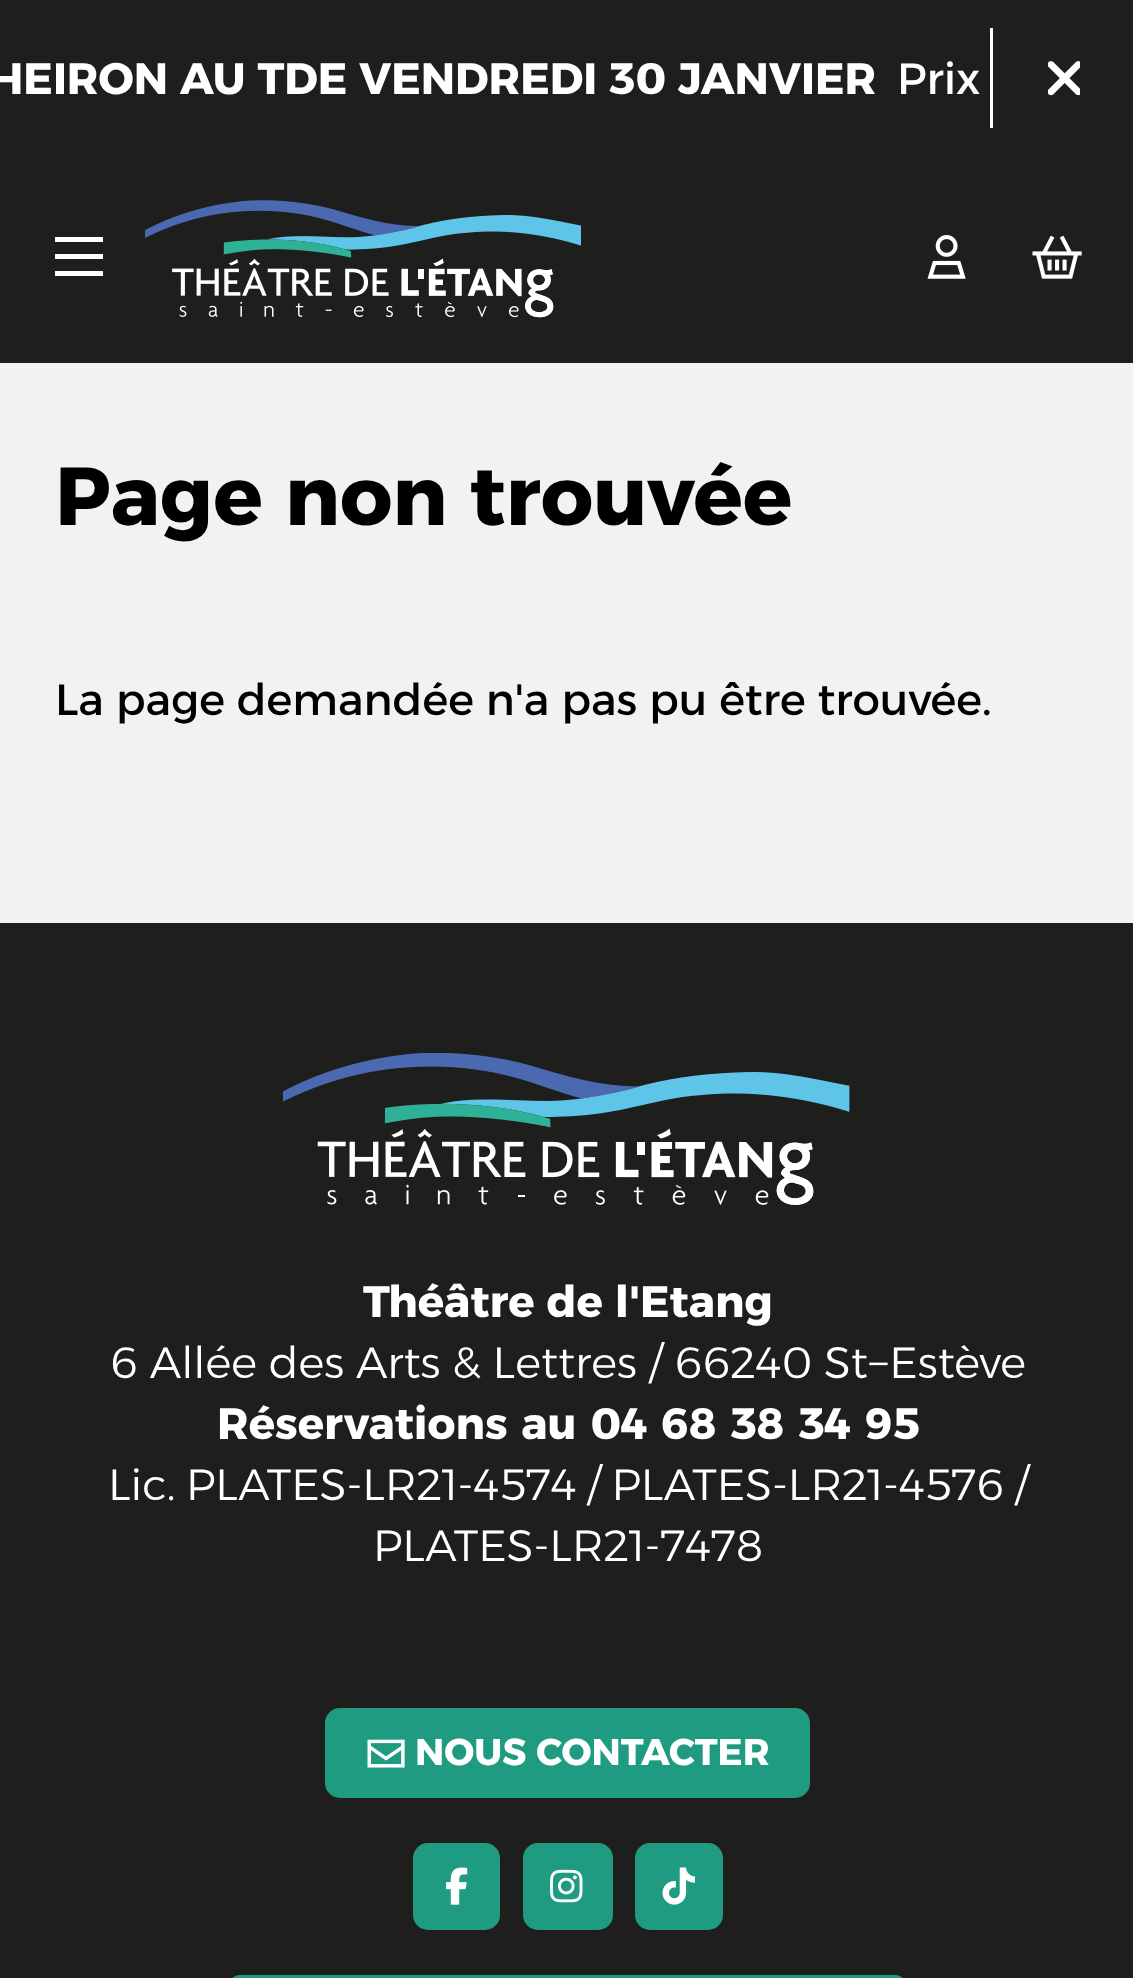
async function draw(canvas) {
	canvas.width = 1133;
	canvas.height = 1978;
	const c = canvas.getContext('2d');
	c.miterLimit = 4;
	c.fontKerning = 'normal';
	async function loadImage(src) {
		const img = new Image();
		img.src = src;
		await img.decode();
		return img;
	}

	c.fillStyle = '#f2f2f2';
	c.fillRect(0, 0, 1133, 1978);
	c.fillStyle = '#1e1e1c';
	c.fillRect(0, 0, 1133, 363);
	c.font = 'bold 43.75px Alexandria';
	c.fillStyle = '#fff';
	c.fillText('HEIRON AU TDE VENDREDI 30 JANVIER', -11, 94);
	c.font = '43.75px Alexandria';
	c.fillText('Prix', 897, 94);
	c.fillRect(990, 28, 3, 100);
	c.drawImage(await loadImage('img1.png'), 1048, 61, 32, 35);
	c.beginPath();
	c.moveTo(55, 237);
	c.lineTo(103, 237);
	c.lineTo(103, 242);
	c.lineTo(55, 242);
	c.closePath();
	c.moveTo(55, 254);
	c.lineTo(103, 254);
	c.lineTo(103, 259);
	c.lineTo(55, 259);
	c.closePath();
	c.moveTo(103, 271);
	c.lineTo(103, 276);
	c.lineTo(55, 276);
	c.lineTo(55, 271);
	c.closePath();
	c.fill();
	c.drawImage(await loadImage('img2.png'), 145, 200, 436, 118);
	c.drawImage(await loadImage('img3.png'), 927, 235, 39, 44);
	c.drawImage(await loadImage('img4.png'), 1032, 235, 50, 44);
	c.font = 'bold 82px Alexandria';
	c.fillStyle = '#000';
	c.fillText('Page non trouvée', 55, 525);
	c.font = '43.75px Alexandria';
	c.fillText('La page demandée n\'a pas pu être trouvée.', 55, 715);
	c.fillStyle = '#1e1e1c';
	c.fillRect(0, 923, 1133, 1055);
	c.drawImage(await loadImage('img5.png'), 283, 1053, 567, 152);
	c.font = 'bold 43.75px Alexandria';
	c.fillStyle = '#fff';
	c.fillText('Théâtre de l\'Etang', 363, 1317);
	c.wordSpacing = '1.25px';
	c.font = '300 43.75px Alexandria';
	c.fillText('6 Allée des Arts & Lettres / 66240 St−Estève', 110, 1378);
	c.wordSpacing = '2px';
	c.font = 'bold 43.75px Alexandria';
	c.fillText('Réservations au 04 68 38 34 95', 217, 1439);
	c.wordSpacing = '0px';
	c.font = '300 43.75px Alexandria';
	for (const [text, x, y] of [
		['Lic.', 108, 1500],
		['PLATES-LR21-4574 / PLATES-LR21-4576 /', 186, 1500],
		['PLATES-LR21-7478', 373, 1561],
	]) {
		c.fillText(text, x, y);
	}
	c.fillStyle = '#1e9b81';
	c.beginPath();
	c.roundRect(325, 1708, 485, 90, 15);
	c.fill();
	c.drawImage(await loadImage('img6.png'), 367, 1739, 38, 29);
	c.font = 'bold 37.25px Alexandria';
	c.fillStyle = '#fff';
	c.fillText('NOUS CONTACTER', 415, 1765);
	c.fillStyle = '#1e9b81';
	c.beginPath();
	c.roundRect(413, 1843, 87, 87, 15);
	c.fill();
	c.drawImage(await loadImage('img7.png'), 446, 1867, 22, 38);
	c.beginPath();
	c.roundRect(523, 1843, 90, 87, 15);
	c.fill();
	c.drawImage(await loadImage('img8.png'), 550, 1869, 33, 34);
	c.beginPath();
	c.roundRect(635, 1843, 88, 87, 15);
	c.fill();
	c.drawImage(await loadImage('img9.png'), 662, 1867, 33, 38);
	c.beginPath();
	c.roundRect(230, 1975, 675, 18, 15);
	c.fill();
}

draw(document.querySelector('canvas'));
